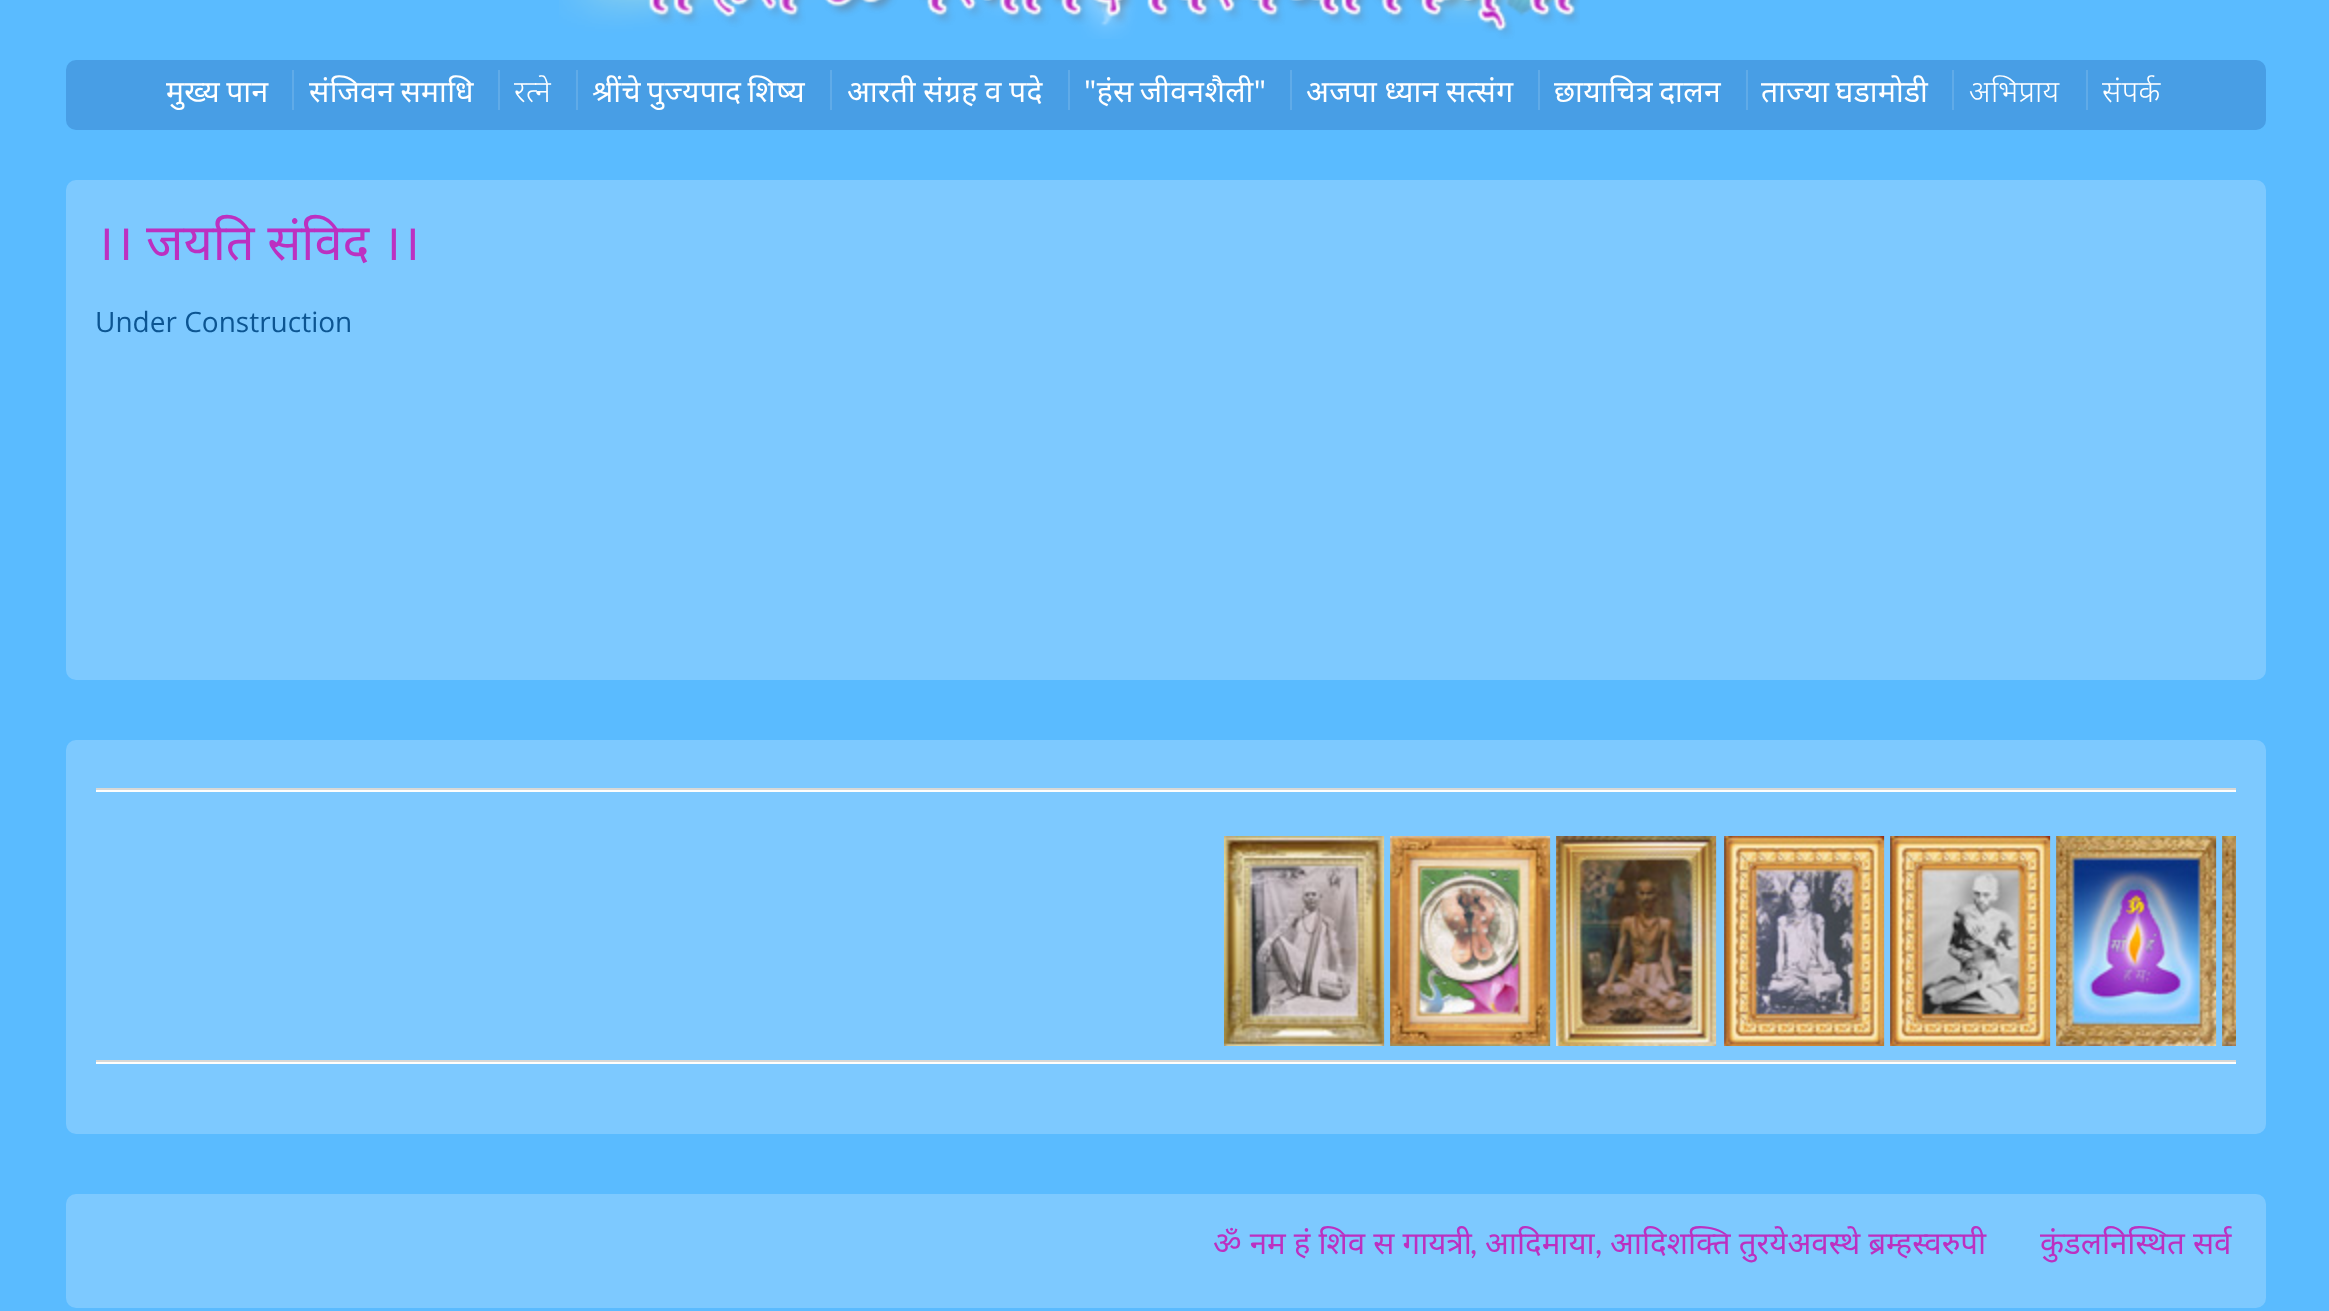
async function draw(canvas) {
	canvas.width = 2329;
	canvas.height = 1311;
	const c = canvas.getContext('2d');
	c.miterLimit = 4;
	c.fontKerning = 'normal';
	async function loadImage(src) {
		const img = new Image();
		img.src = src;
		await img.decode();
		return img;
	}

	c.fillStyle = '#5abbff';
	c.fillRect(0, 0, 2329, 1311);
	c.drawImage(await loadImage('img1.png'), 559, 0, 1021, 39);
	c.fillStyle = '#489ee5';
	c.beginPath();
	c.roundRect(66, 60, 2200, 70, 10);
	c.fill();
	c.letterSpacing = '0.4px';
	c.wordSpacing = '-2px';
	c.font = '30px Noto Sans';
	c.fillStyle = '#fff';
	c.fillText('मुख्‍य पान', 166, 102);
	c.fillStyle = '#60abe8';
	c.fillRect(292, 70, 2, 40);
	c.fillStyle = '#fff';
	c.fillText('संजिवन समाधि', 309, 102);
	c.fillStyle = '#60abe8';
	c.fillRect(498, 70, 2, 40);
	c.wordSpacing = '0px';
	c.font = '300 30px Noto Sans';
	c.fillStyle = '#fff';
	c.fillText('रत्‍ने', 514, 102);
	c.fillStyle = '#60abe8';
	c.fillRect(576, 70, 2, 40);
	c.wordSpacing = '-2px';
	c.font = '30px Noto Sans';
	c.fillStyle = '#fff';
	c.fillText('श्रींचे पुज्‍यपाद शिष्‍य', 592, 102);
	c.fillStyle = '#60abe8';
	c.fillRect(830, 70, 2, 40);
	c.wordSpacing = '-1px';
	c.fillStyle = '#fff';
	c.fillText('आरती संग्रह व पदे', 847, 102);
	c.fillStyle = '#60abe8';
	c.fillRect(1068, 70, 2, 40);
	c.wordSpacing = '-2px';
	c.fillStyle = '#fff';
	c.fillText('"हंस जीवनशैली"', 1084, 102);
	c.fillStyle = '#60abe8';
	c.fillRect(1290, 70, 2, 40);
	c.wordSpacing = '-1px';
	c.fillStyle = '#fff';
	c.fillText('अजपा ध्‍यान सत्‍संग', 1306, 102);
	c.fillStyle = '#60abe8';
	c.fillRect(1538, 70, 2, 40);
	c.wordSpacing = '-2px';
	c.fillStyle = '#fff';
	c.fillText('छायाचित्र दालन', 1554, 102);
	c.fillStyle = '#60abe8';
	c.fillRect(1746, 70, 2, 40);
	c.fillStyle = '#fff';
	c.fillText('ताज्या घडामोडी', 1761, 102);
	c.fillStyle = '#60abe8';
	c.fillRect(1952, 70, 2, 40);
	c.wordSpacing = '0px';
	c.font = '300 30px Noto Sans';
	c.fillStyle = '#fff';
	c.fillText('अभिप्राय', 1969, 102);
	c.fillStyle = '#60abe8';
	c.fillRect(2086, 70, 2, 40);
	c.fillStyle = '#fff';
	c.fillText('संपर्क', 2102, 102);
	c.fillStyle = '#7dc9ff';
	c.beginPath();
	c.roundRect(66, 180, 2200, 500, 10);
	c.fill();
	c.letterSpacing = '0px';
	c.wordSpacing = '-0.5px';
	c.font = '50.5px Noto Sans';
	c.fillStyle = '#bc30c1';
	c.fillText('।। जयति संविद ।।', 95, 260);
	c.wordSpacing = '0px';
	c.font = '28px Open Sans';
	c.fillStyle = '#0c5592';
	c.fillText('Under Construction', 95, 332);
	c.fillStyle = '#7dc9ff';
	c.beginPath();
	c.roundRect(66, 740, 2200, 394, 10);
	c.fill();
	for (const [x, y, w, h, color] of [
		[96, 790, 2140, 2, '#fefefc'],
		[96, 1062, 2140, 2, '#fefefc'],
		[96, 788, 2140, 2, '#d8d8d6'],
	]) {
		c.fillStyle = color;
		c.fillRect(x, y, w, h);
	}
	c.drawImage(await loadImage('img2.png'), 1224, 836, 161, 210);
	c.drawImage(await loadImage('img3.png'), 1390, 836, 161, 210);
	c.drawImage(await loadImage('img4.png'), 1556, 836, 161, 210);
	c.drawImage(await loadImage('img5.png'), 1724, 836, 161, 210);
	c.drawImage(await loadImage('img6.png'), 1890, 836, 161, 210);
	c.drawImage(await loadImage('img7.png'), 2056, 836, 161, 210);
	c.drawImage(await loadImage('img8.png'), 2222, 836, 14, 210);
	c.fillRect(96, 1060, 2140, 2);
	c.fillStyle = '#7dc9ff';
	c.beginPath();
	c.roundRect(66, 1194, 2200, 114, 10);
	c.fill();
	c.font = '31.25px Noto Sans';
	c.fillStyle = '#bc30c1';
	c.fillText('ॐ नम हं शिव स गायत्री', 1213, 1254);
	c.font = '500 31.25px Lato';
	c.fillText(',', 1470, 1254);
	c.font = '31.25px Noto Sans';
	c.fillText('आदिमाया', 1485, 1254);
	c.font = '500 31.25px Lato';
	c.fillText(',', 1595, 1254);
	c.font = '31.25px Noto Sans';
	c.fillText('आदिशक्ति तुरयेअवस्‍थे ब्रम्‍हस्‍वरुपी', 1610, 1254);
	c.fillText('कुंडलनिस्थित सर्व', 2040, 1254);
}

draw(document.querySelector('canvas'));
